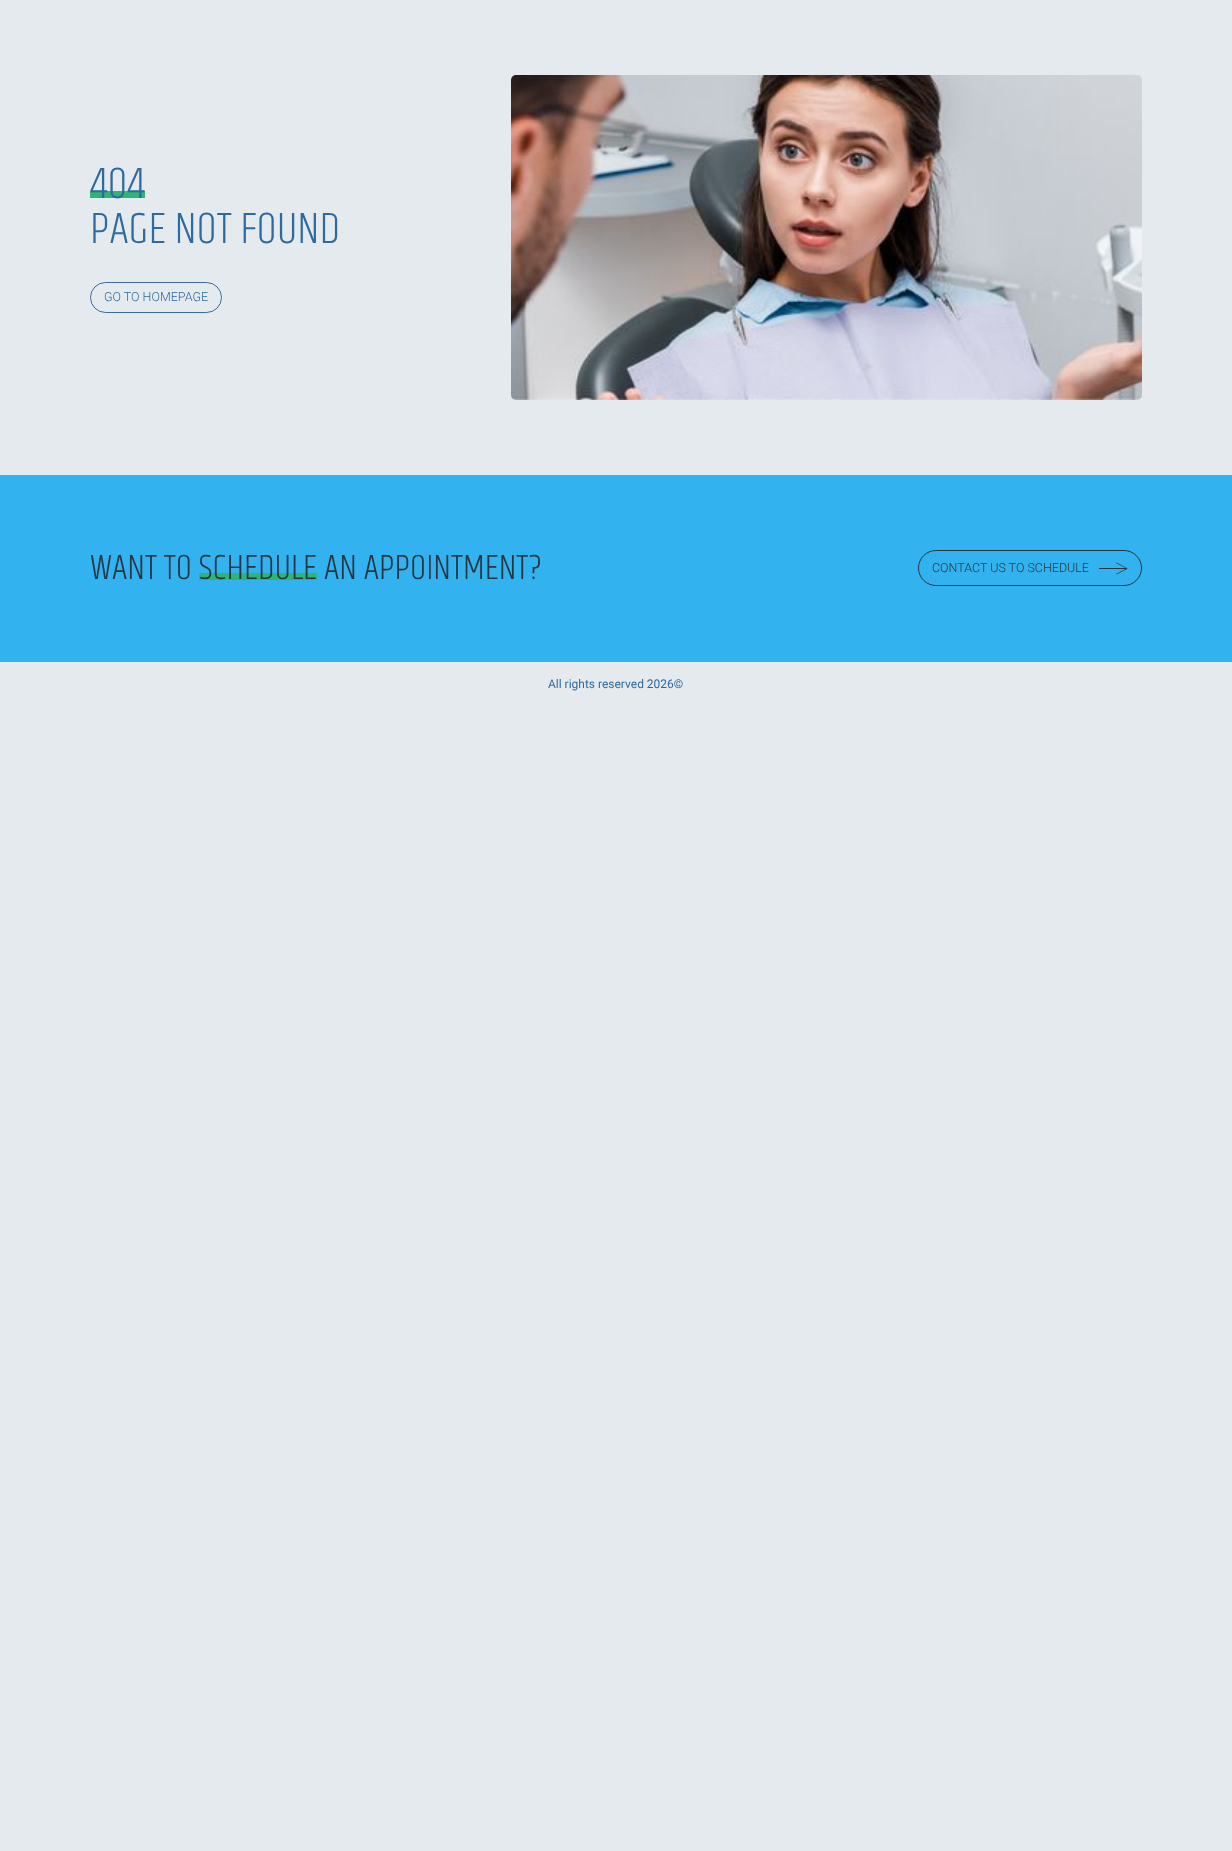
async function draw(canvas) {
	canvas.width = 1232;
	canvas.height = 1851;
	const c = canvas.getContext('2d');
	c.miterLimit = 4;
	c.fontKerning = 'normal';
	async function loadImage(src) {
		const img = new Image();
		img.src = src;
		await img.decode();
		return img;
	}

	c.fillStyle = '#e5eaef';
	c.fillRect(0, 0, 1232, 1851);
	c.fillStyle = '#2fb473';
	c.fillRect(90, 191, 55, 7);
	c.font = '300 45px Khand';
	c.fillStyle = '#2c6a9f';
	c.fillText('404', 90, 198);
	c.fillText('PAGE NOT FOUND', 90, 243);
	c.beginPath();
	c.roundRect(90.5, 282.5, 131, 30, 15);
	c.strokeStyle = '#3b6a9b';
	c.stroke();
	c.font = '300 12.5px Roboto';
	c.fillText('GO TO HOMEPAGE', 104, 301);
	c.drawImage(await loadImage('img1.png'), 511, 75, 631, 325);
	c.fillStyle = '#33b2f0';
	c.fillRect(0, 475, 1232, 187);
	c.font = '300 36px Khand';
	c.fillStyle = '#283440';
	c.fillText('WANT TO', 90, 579);
	c.fillStyle = '#2fb473';
	c.fillRect(199, 573, 118, 7);
	c.fillStyle = '#283440';
	c.fillText('SCHEDULE AN APPOINTMENT?', 199, 579);
	c.beginPath();
	c.roundRect(918.5, 550.5, 223, 35, 17.5);
	c.strokeStyle = '#283440';
	c.stroke();
	c.font = '300 12.5px Roboto';
	c.fillText('CONTACT US TO SCHEDULE', 932, 572);
	c.beginPath();
	c.moveTo(1116.5, 574.5);
	c.lineTo(1116, 574);
	c.lineTo(1126.5, 568.5);
	c.lineTo(1116, 563);
	c.lineTo(1116.5, 562.5);
	c.lineTo(1127.5, 568.5);
	c.lineTo(1127, 569);
	c.closePath();
	c.fill();
	c.fillRect(1099, 568, 28, 1);
	c.font = '12px Roboto';
	c.fillStyle = '#2c6a9f';
	c.fillText('All rights reserved 2026©', 548, 688);
}

draw(document.querySelector('canvas'));
